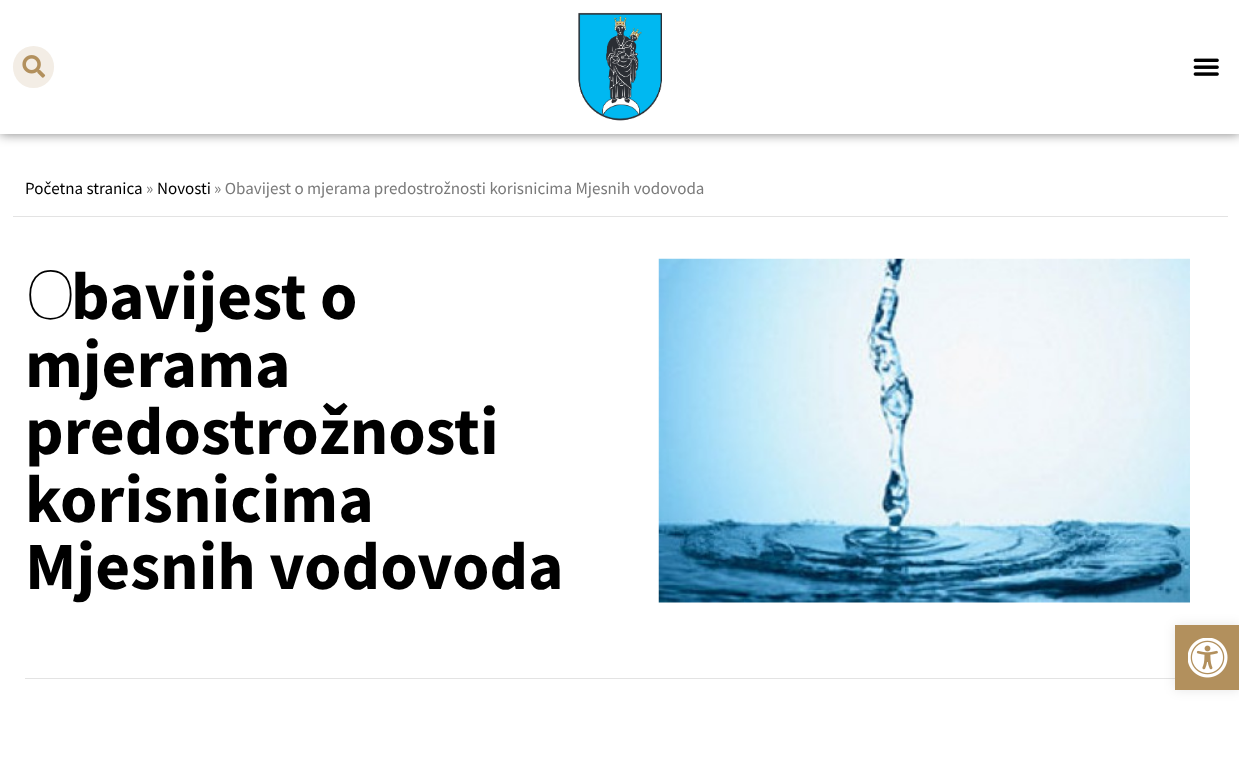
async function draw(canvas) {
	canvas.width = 1239;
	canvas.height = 763;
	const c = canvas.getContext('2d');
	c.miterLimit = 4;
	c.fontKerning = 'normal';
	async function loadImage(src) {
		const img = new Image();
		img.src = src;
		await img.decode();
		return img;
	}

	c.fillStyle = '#fff';
	c.fillRect(0, 0, 1239, 763);
	c.fillStyle = '#00000080';
	c.filter = 'blur(6px)';
	c.beginPath();
	c.rect(0, 0, 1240, 134);
	c.fill();
	c.filter = 'none';
	c.fillStyle = '#fff';
	c.fillRect(0, 0, 1239, 134);
	c.fillStyle = '#f3ede5';
	c.beginPath();
	c.roundRect(13, 46, 41, 42, 20.5);
	c.fill();
	c.drawImage(await loadImage('img1.png'), 22, 55, 24, 23);
	c.drawImage(await loadImage('img2.png'), 578, 12, 84, 109);
	c.drawImage(await loadImage('img3.png'), 1193, 58, 26, 18);
	c.fillStyle = '#e3e3e3';
	c.fillRect(13, 216, 1215, 1);
	c.font = '17px Source Sans Pro';
	c.fillStyle = '#000';
	c.fillText('Početna stranica', 25, 194);
	c.fillStyle = '#7a7a7a';
	c.fillText('»', 146, 194);
	c.fillStyle = '#000';
	c.fillText('Novosti', 157, 194);
	c.fillStyle = '#7a7a7a';
	c.fillText('» Obavijest o mjerama predostrožnosti korisnicima Mjesnih vodovoda', 214, 194);
	c.font = '100 67.5px Noto Sans';
	c.fillStyle = '#000';
	c.fillText('O', 25, 319);
	c.font = 'bold 67.5px Source Sans Pro';
	for (const [text, x, y] of [
		['bavijest o', 71, 319],
		['mjerama', 25, 387],
		['predostrožnosti', 25, 454],
		['korisnicima', 25, 522],
		['Mjesnih vodovoda', 25, 589],
	]) {
		c.fillText(text, x, y);
	}
	c.drawImage(await loadImage('img4.png'), 658, 258, 532, 345);
	c.fillStyle = '#e3e3e3';
	c.fillRect(25, 678, 1150, 1);
	c.fillStyle = '#0000001a';
	c.filter = 'blur(6px)';
	c.beginPath();
	c.rect(1175, 625, 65, 65);
	c.fill();
	c.filter = 'none';
	c.fillStyle = '#b2905d';
	c.fillRect(1175, 625, 64, 65);
	c.drawImage(await loadImage('img5.png'), 1188, 638, 40, 40);
}

draw(document.querySelector('canvas'));
